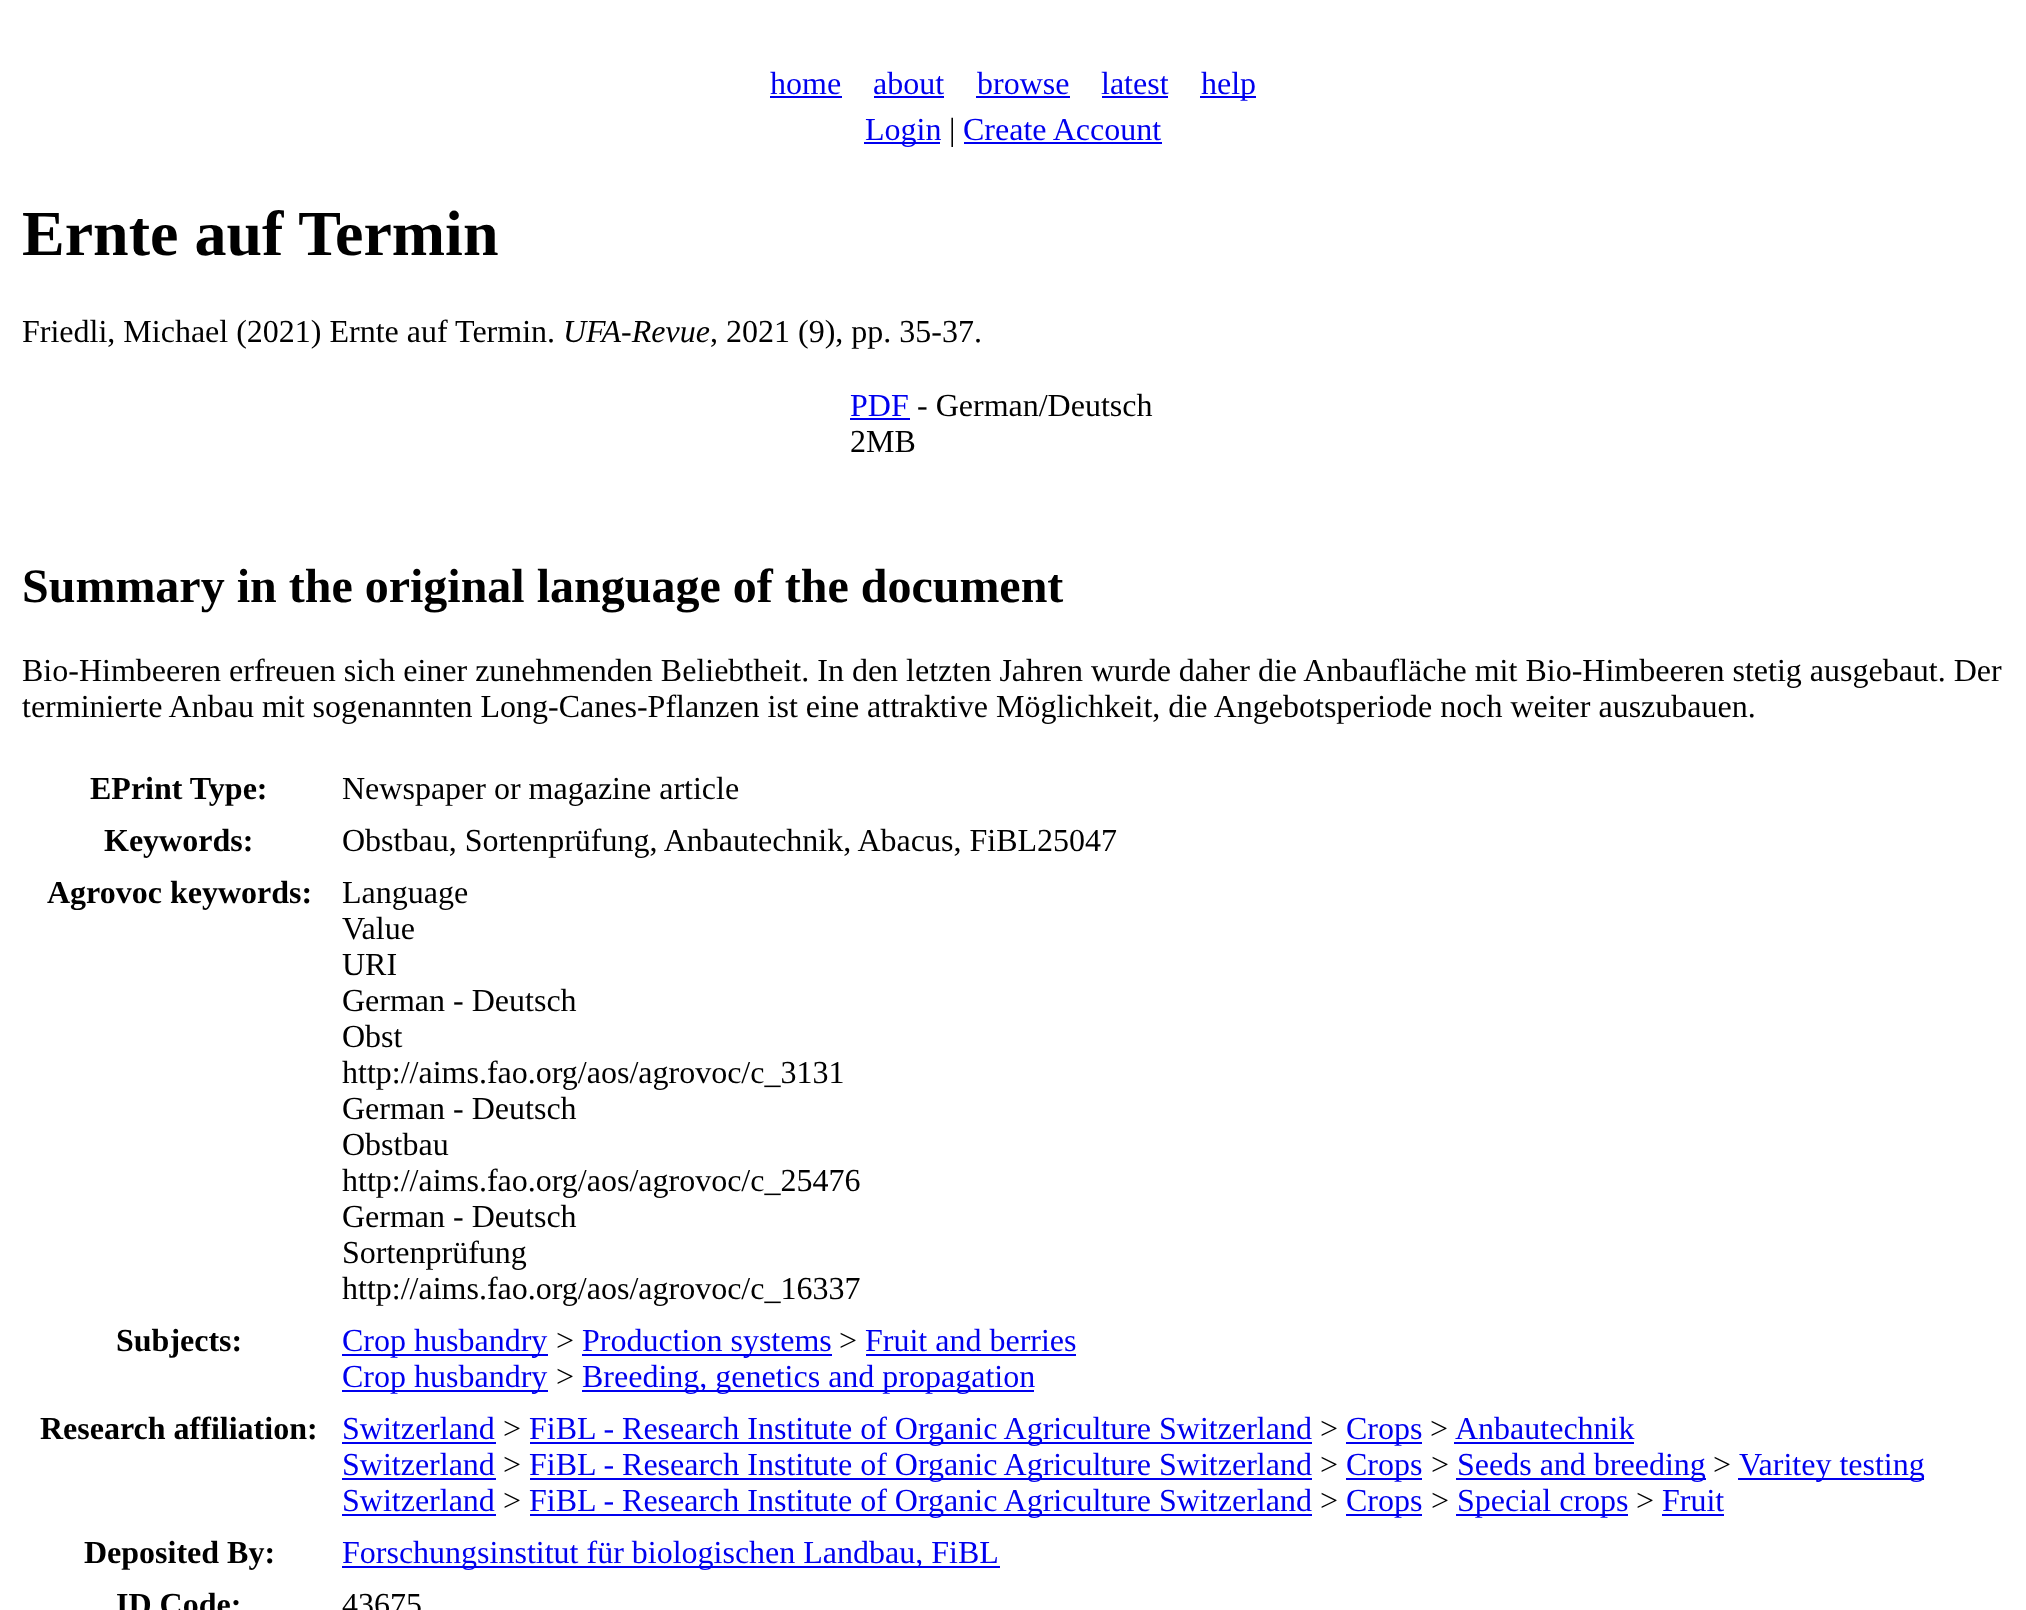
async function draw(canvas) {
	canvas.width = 2026;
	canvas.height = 1610;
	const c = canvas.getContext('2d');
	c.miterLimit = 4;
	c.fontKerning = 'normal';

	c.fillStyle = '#fff';
	c.fillRect(0, 0, 2026, 1610);
	c.font = '32px Liberation Serif';
	c.fillStyle = '#00e';
	c.fillText('home', 770, 94);
	c.fillRect(770, 96, 72, 2);
	c.fillText('about', 873, 94);
	c.fillRect(874, 96, 70, 2);
	c.fillText('browse', 977, 94);
	c.fillRect(976, 96, 94, 2);
	c.fillText('latest', 1101, 94);
	c.fillRect(1102, 96, 66, 2);
	c.fillRect(1200, 96, 56, 2);
	c.fillText('help', 1201, 94);
	c.fillRect(864, 142, 76, 2);
	c.fillText('Login', 865, 140);
	c.fillStyle = '#000';
	c.fillText('|', 949, 140);
	c.fillStyle = '#00e';
	c.fillText('Create Account', 963, 140);
	c.fillRect(964, 142, 198, 2);
	c.font = 'bold 64px Liberation Serif';
	c.fillStyle = '#000';
	c.fillText('Ernte auf Termin', 22, 255);
	c.font = '32px Liberation Serif';
	c.fillText('Friedli, Michael (2021) Ernte auf Termin.', 22, 342);
	c.font = 'italic 32px Liberation Serif';
	c.fillText('UFA-Revue', 563, 342);
	c.font = '32px Liberation Serif';
	c.fillText(', 2021 (9), pp. 35-37.', 710, 342);
	c.fillStyle = '#00e';
	c.fillText('PDF', 850, 416);
	c.fillRect(850, 418, 60, 2);
	c.fillStyle = '#000';
	c.fillText('- German/Deutsch', 917, 416);
	c.fillText('2MB', 850, 452);
	c.font = 'bold 48px Liberation Serif';
	c.fillText('Summary in the original language of the document', 22, 602);
	c.font = '32px Liberation Serif';
	c.fillText('Bio-Himbeeren erfreuen sich einer zunehmenden Beliebtheit. In den letzten Jahren wurde daher die Anbaufläche mit Bio-Himbeeren stetig ausgebaut. Der', 22, 681);
	c.fillText('terminierte Anbau mit sogenannten Long-Canes-Pflanzen ist eine attraktive Möglichkeit, die Angebotsperiode noch weiter auszubauen.', 22, 717);
	c.font = 'bold 32px Liberation Serif';
	c.fillText('EPrint Type:', 90, 799);
	c.font = '32px Liberation Serif';
	c.fillText('Newspaper or magazine article', 342, 799);
	c.font = 'bold 32px Liberation Serif';
	c.fillText('Keywords:', 104, 851);
	c.font = '32px Liberation Serif';
	c.fillText('Obstbau, Sortenprüfung, Anbautechnik, Abacus, FiBL25047', 342, 851);
	c.font = 'bold 32px Liberation Serif';
	c.fillText('Agrovoc keywords:', 47, 903);
	c.font = '32px Liberation Serif';
	for (const [text, x, y] of [
		['Language', 342, 903],
		['Value', 342, 939],
		['URI', 342, 975],
		['German - Deutsch', 342, 1011],
		['Obst', 342, 1047],
		['http://aims.fao.org/aos/agrovoc/c_3131', 342, 1083],
		['German - Deutsch', 342, 1119],
		['Obstbau', 342, 1155],
		['http://aims.fao.org/aos/agrovoc/c_25476', 342, 1191],
		['German - Deutsch', 342, 1227],
		['Sortenprüfung', 342, 1263],
		['http://aims.fao.org/aos/agrovoc/c_16337', 342, 1299],
	]) {
		c.fillText(text, x, y);
	}
	c.font = 'bold 32px Liberation Serif';
	c.fillText('Subjects:', 116, 1351);
	c.fillStyle = '#00e';
	c.fillRect(342, 1354, 206, 2);
	c.font = '32px Liberation Serif';
	c.fillText('Crop husbandry', 342, 1351);
	c.fillStyle = '#000';
	c.fillText('>', 556, 1351);
	c.fillStyle = '#00e';
	c.fillRect(582, 1354, 250, 2);
	c.fillText('Production systems', 582, 1351);
	c.fillStyle = '#000';
	c.fillText('>', 839, 1351);
	c.fillStyle = '#00e';
	c.fillText('Fruit and berries', 865, 1351);
	c.fillRect(866, 1354, 210, 2);
	c.fillRect(342, 1390, 206, 2);
	c.fillText('Crop husbandry', 342, 1387);
	c.fillStyle = '#000';
	c.fillText('>', 556, 1387);
	c.fillStyle = '#00e';
	c.fillRect(582, 1390, 452, 2);
	c.fillText('Breeding, genetics and propagation', 582, 1387);
	c.font = 'bold 32px Liberation Serif';
	c.fillStyle = '#000';
	c.fillText('Research affiliation:', 40, 1439);
	c.font = '32px Liberation Serif';
	c.fillStyle = '#00e';
	c.fillText('Switzerland', 342, 1439);
	c.fillRect(342, 1442, 154, 2);
	c.fillStyle = '#000';
	c.fillText('>', 503, 1439);
	c.fillStyle = '#00e';
	c.fillRect(530, 1442, 782, 2);
	c.fillText('FiBL - Research Institute of Organic Agriculture Switzerland', 529, 1439);
	c.fillStyle = '#000';
	c.fillText('>', 1320, 1439);
	c.fillStyle = '#00e';
	c.fillRect(1346, 1442, 76, 2);
	c.fillText('Crops', 1346, 1439);
	c.fillStyle = '#000';
	c.fillText('>', 1430, 1439);
	c.fillStyle = '#00e';
	c.fillText('Anbautechnik', 1455, 1439);
	c.fillRect(1454, 1442, 180, 2);
	c.fillText('Switzerland', 342, 1475);
	c.fillRect(342, 1478, 154, 2);
	c.fillStyle = '#000';
	c.fillText('>', 503, 1475);
	c.fillStyle = '#00e';
	c.fillRect(530, 1478, 782, 2);
	c.fillText('FiBL - Research Institute of Organic Agriculture Switzerland', 529, 1475);
	c.fillStyle = '#000';
	c.fillText('>', 1320, 1475);
	c.fillStyle = '#00e';
	c.fillRect(1346, 1478, 76, 2);
	c.fillText('Crops', 1346, 1475);
	c.fillStyle = '#000';
	c.fillText('>', 1431, 1475);
	c.fillStyle = '#00e';
	c.fillRect(1456, 1478, 250, 2);
	c.fillText('Seeds and breeding', 1457, 1475);
	c.fillStyle = '#000';
	c.fillText('>', 1713, 1475);
	c.fillStyle = '#00e';
	c.fillRect(1738, 1478, 186, 2);
	c.fillText('Varitey testing', 1739, 1475);
	c.fillText('Switzerland', 342, 1511);
	c.fillRect(342, 1514, 154, 2);
	c.fillStyle = '#000';
	c.fillText('>', 503, 1511);
	c.fillStyle = '#00e';
	c.fillRect(530, 1514, 782, 2);
	c.fillText('FiBL - Research Institute of Organic Agriculture Switzerland', 529, 1511);
	c.fillStyle = '#000';
	c.fillText('>', 1320, 1511);
	c.fillStyle = '#00e';
	c.fillRect(1346, 1514, 76, 2);
	c.fillText('Crops', 1346, 1511);
	c.fillStyle = '#000';
	c.fillText('>', 1431, 1511);
	c.fillStyle = '#00e';
	c.fillRect(1456, 1514, 172, 2);
	c.fillText('Special crops', 1457, 1511);
	c.fillStyle = '#000';
	c.fillText('>', 1636, 1511);
	c.fillStyle = '#00e';
	c.fillText('Fruit', 1662, 1511);
	c.fillRect(1662, 1514, 62, 2);
	c.font = 'bold 32px Liberation Serif';
	c.fillStyle = '#000';
	c.fillText('Deposited By:', 84, 1563);
	c.fillStyle = '#00e';
	c.fillRect(342, 1566, 658, 2);
	c.font = '32px Liberation Serif';
	c.fillText('Forschungsinstitut für biologischen Landbau, FiBL', 342, 1563);
	c.font = 'bold 32px Liberation Serif';
	c.fillStyle = '#000';
	c.fillText('ID Code:', 116, 1615);
	c.font = '32px Liberation Serif';
	c.fillText('43675', 342, 1615);
}

draw(document.querySelector('canvas'));
